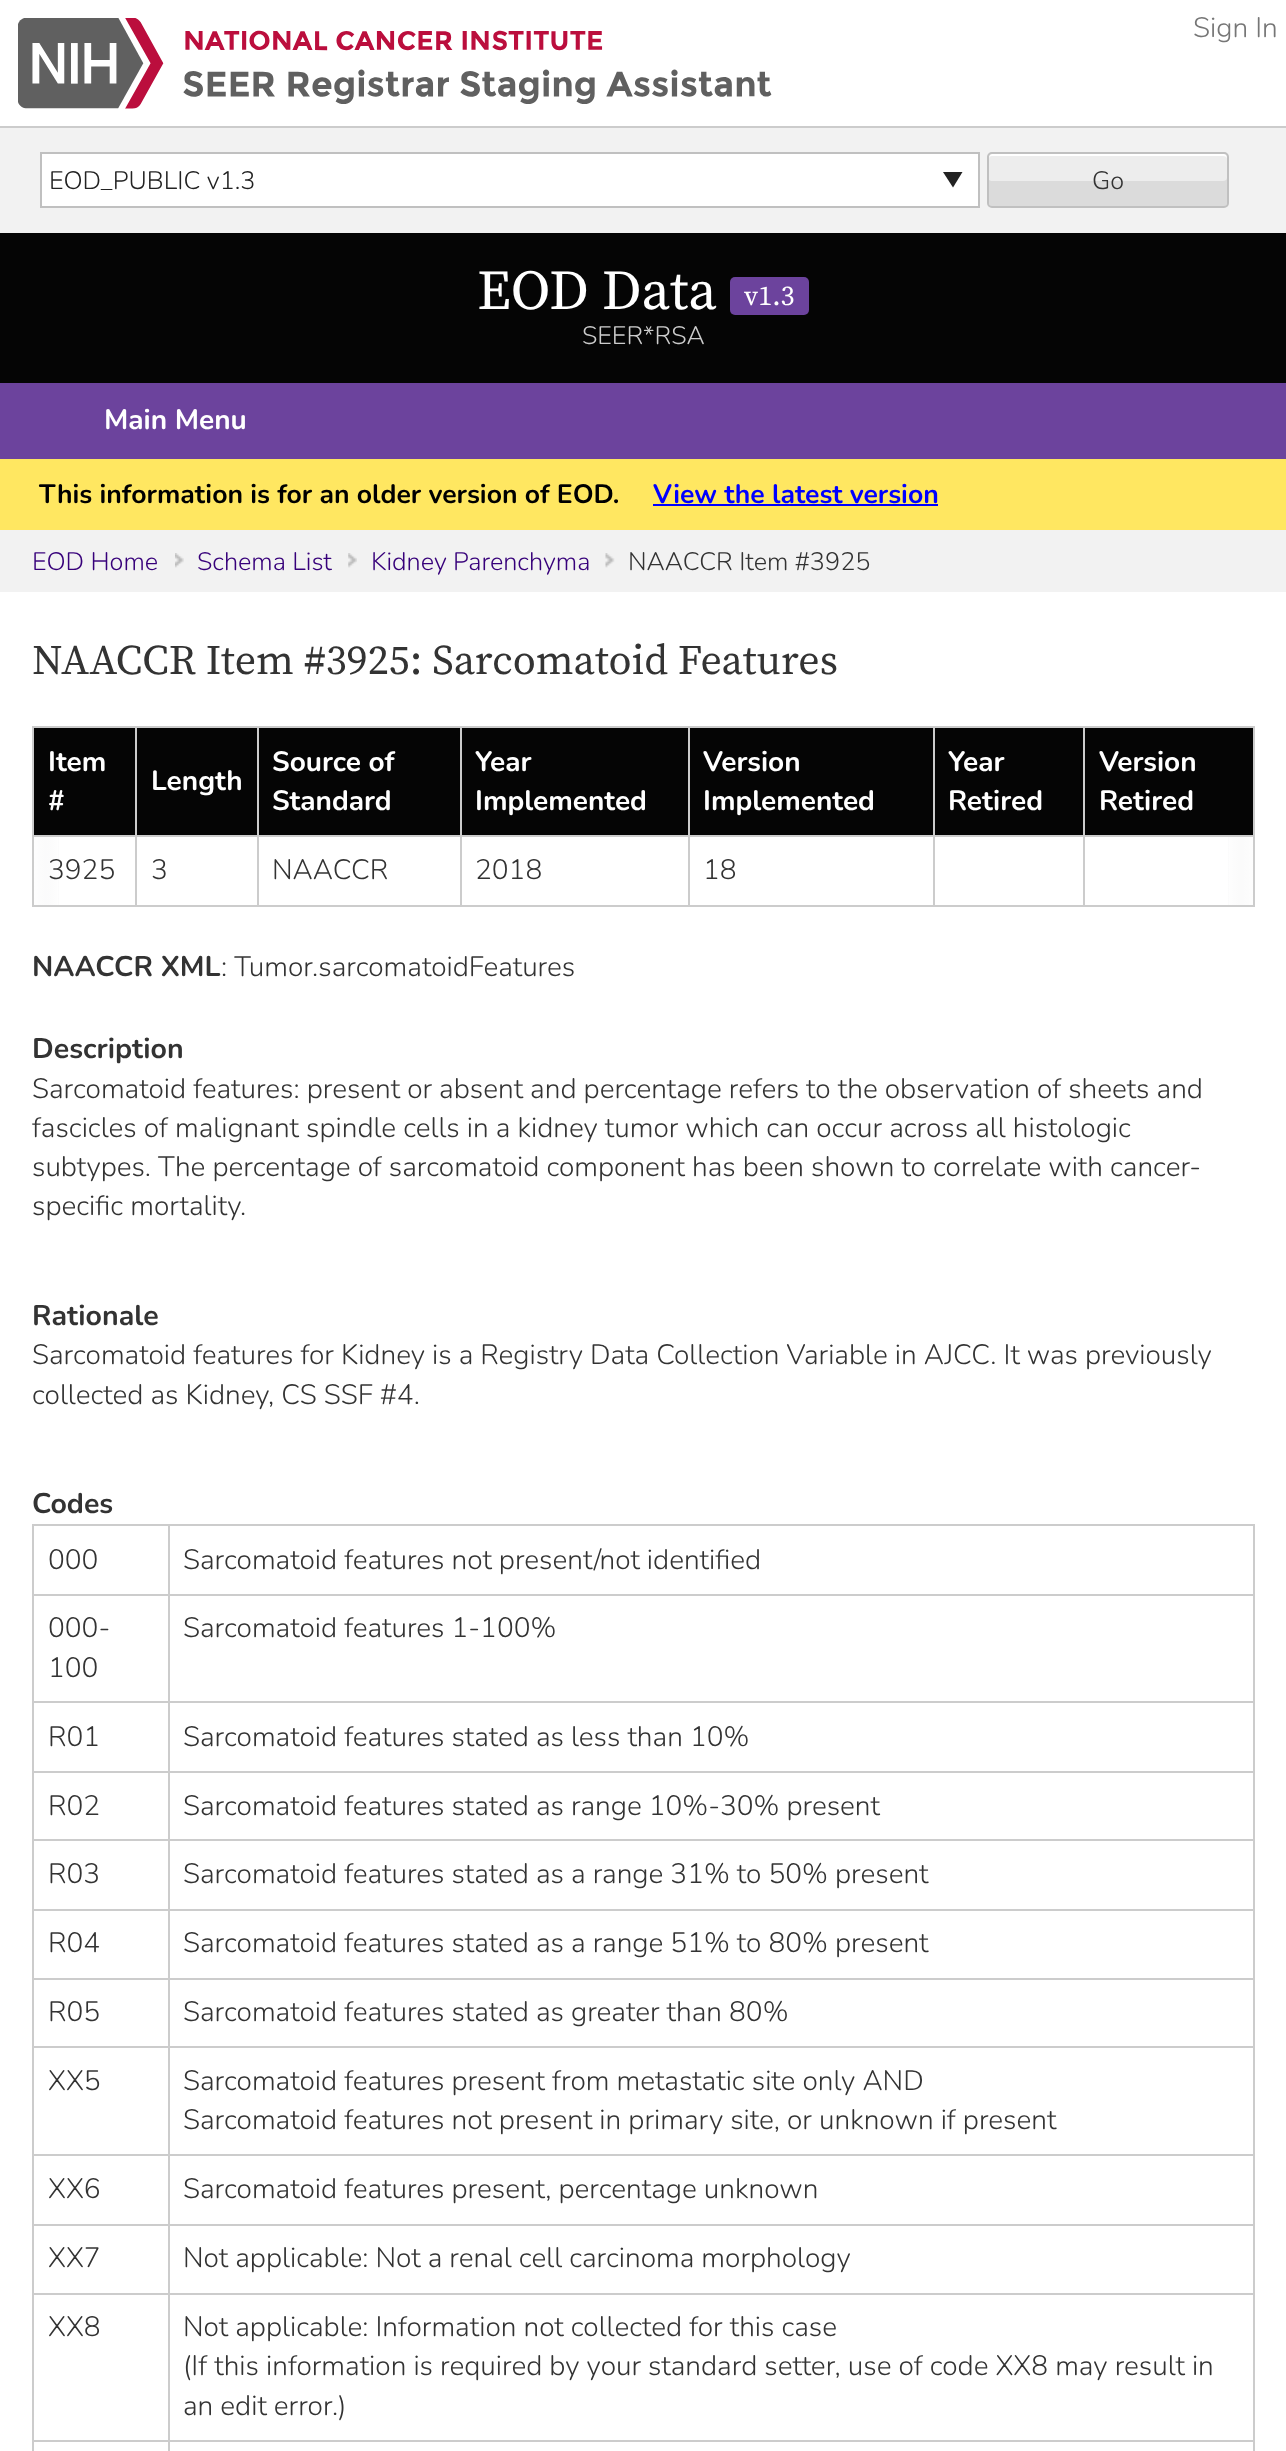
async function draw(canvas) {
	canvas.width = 1286;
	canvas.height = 2451;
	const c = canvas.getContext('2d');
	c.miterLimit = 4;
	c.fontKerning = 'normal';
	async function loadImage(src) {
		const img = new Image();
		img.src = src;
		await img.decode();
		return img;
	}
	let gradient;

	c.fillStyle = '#050505';
	c.fillRect(0, 0, 1286, 2451);
	c.fillStyle = '#fff';
	c.fillRect(0, 0, 1286, 126);
	c.font = '200 28px "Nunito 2"';
	c.fillStyle = '#767676';
	c.fillText('Sign In', 1193, 37);
	c.drawImage(await loadImage('img1.png'), 18, 18, 754, 91);
	for (const [x, y, w, h, color] of [
		[0, 128, 1286, 105, '#f2f2f2'],
		[0, 126, 1286, 2, '#ccc'],
		[42, 154, 936, 52, '#fff'],
	]) {
		c.fillStyle = color;
		c.fillRect(x, y, w, h);
	}
	c.fillStyle = '#222';
	c.beginPath();
	c.moveTo(962.5, 172);
	c.lineTo(953, 187.5);
	c.lineTo(943, 172);
	c.closePath();
	c.fill();
	c.strokeStyle = '#c0c0c0';
	c.lineWidth = 2;
	c.strokeRect(41, 153, 938, 54);
	c.font = '200 25.25px "Nunito 2"';
	c.fillText('EOD_PUBLIC v1.3', 49, 189);
	c.fillStyle = '#ededed';
	c.beginPath();
	c.roundRect(987, 152, 242, 56, 5);
	c.fill();
	c.fillStyle = '#fff';
	c.beginPath();
	c.moveTo(992, 156);
	c.lineTo(1223, 156);
	c.bezierCurveTo(1225, 156, 1227, 157, 1227, 159);
	c.bezierCurveTo(1227, 156, 1226, 154, 1223, 154);
	c.lineTo(993, 154);
	c.bezierCurveTo(990, 154, 989, 156, 989, 159);
	c.bezierCurveTo(989, 157, 990, 156, 992, 156);
	c.closePath();
	c.fill();
	c.fillStyle = '#dbdbdb';
	c.beginPath();
	c.moveTo(989, 178);
	c.lineTo(989, 203);
	c.bezierCurveTo(989, 205, 991, 207, 993, 207);
	c.lineTo(1223, 207);
	c.bezierCurveTo(1225, 207, 1227, 205, 1227, 203);
	c.lineTo(1227, 178);
	c.bezierCurveTo(1227, 180, 1225, 181, 1223, 181);
	c.lineTo(991, 181);
	c.lineTo(989, 180);
	c.closePath();
	c.fill();
	c.beginPath();
	c.roundRect(988, 153, 240, 54, 4);
	c.stroke();
	c.fillStyle = '#333';
	c.fillText('Go', 1092, 189);
	c.font = '56px Source Serif Pro';
	c.fillStyle = '#fff';
	c.fillText('EOD Data', 477, 309);
	c.fillStyle = '#6c439d';
	c.beginPath();
	c.roundRect(730, 277, 79, 38, 5);
	c.fill();
	c.font = '28px Source Serif Pro';
	c.fillStyle = '#fff';
	c.fillText('v1.3', 744, 305);
	c.font = '200 25.25px "Nunito 2"';
	c.fillStyle = '#ccc';
	c.fillText('SEER*RSA', 582, 344);
	c.fillStyle = '#6c439d';
	c.fillRect(0, 383, 1286, 76);
	c.font = '200 28px Nunito';
	c.fillStyle = '#fff';
	c.fillText('Main Menu', 104, 429);
	c.fillStyle = '#ffe761';
	c.fillRect(0, 459, 1286, 71);
	c.font = '200 26.6px Nunito';
	c.fillStyle = '#000';
	c.fillText('This information is for an older version of EOD.', 39, 503);
	c.fillStyle = '#00f';
	c.fillText('View the latest version', 653, 503);
	c.fillRect(653, 504, 285, 2);
	c.fillStyle = '#f2f2f2';
	c.fillRect(0, 530, 1286, 62);
	c.drawImage(await loadImage('img2.png'), 175, 553, 9, 15);
	c.font = '200 25.25px "Nunito 2"';
	c.fillStyle = '#37007a';
	c.fillText('EOD Home', 32, 570);
	c.drawImage(await loadImage('img3.png'), 348, 553, 9, 15);
	c.fillText('Schema List', 197, 570);
	c.drawImage(await loadImage('img4.png'), 605, 553, 10, 15);
	c.fillText('Kidney Parenchyma', 371, 570);
	c.fillStyle = '#333';
	c.fillText('NAACCR Item #3925', 628, 570);
	c.fillStyle = '#fff';
	c.fillRect(0, 592, 1286, 1859);
	c.font = '42px Source Serif Pro';
	c.fillStyle = '#333';
	c.fillText('NAACCR Item #3925: Sarcomatoid Features', 32, 674);
	gradient = c.createLinearGradient(1255, 816, 1227, 816);
	gradient.addColorStop(0, '#c3c3c5');
	gradient.addColorStop(1, '#fff');
	c.fillStyle = gradient;
	c.fillRect(1228, 837, 25, 68);
	gradient = c.createLinearGradient(31, 816, 60, 816);
	gradient.addColorStop(0, '#c3c3c5');
	gradient.addColorStop(1, '#fff');
	c.fillStyle = gradient;
	c.fillRect(34, 837, 25, 68);
	gradient = c.createLinearGradient(1255, 816, 1143, 816);
	gradient.addColorStop(0, '#fff');
	gradient.addColorStop(1, '#ffffff00');
	c.fillStyle = gradient;
	c.fillRect(1229, 837, 24, 68);
	gradient = c.createLinearGradient(32, 816, 144, 816);
	gradient.addColorStop(0, '#fff');
	gradient.addColorStop(1, '#ffffff00');
	c.fillStyle = gradient;
	c.fillRect(34, 837, 24, 68);
	for (const [x, y, w, h, color] of [
		[34, 728, 101, 107, '#050505'],
		[1083, 726, 172, 2, '#ccc'],
		[1083, 835, 172, 2, '#ccc'],
		[1253, 835, 2, 72, '#ccc'],
		[1083, 905, 172, 2, '#ccc'],
		[1083, 835, 2, 72, '#ccc'],
		[933, 835, 152, 2, '#ccc'],
		[1083, 726, 2, 111, '#ccc'],
		[933, 726, 152, 2, '#ccc'],
		[933, 905, 152, 2, '#ccc'],
		[933, 835, 2, 72, '#ccc'],
		[688, 835, 247, 2, '#ccc'],
		[933, 726, 2, 111, '#ccc'],
		[688, 726, 247, 2, '#ccc'],
		[688, 905, 247, 2, '#ccc'],
		[688, 835, 2, 72, '#ccc'],
		[460, 835, 230, 2, '#ccc'],
		[688, 726, 2, 111, '#ccc'],
		[460, 726, 230, 2, '#ccc'],
		[460, 905, 230, 2, '#ccc'],
		[460, 835, 2, 72, '#ccc'],
		[257, 835, 205, 2, '#ccc'],
		[460, 726, 2, 111, '#ccc'],
		[257, 726, 205, 2, '#ccc'],
		[257, 905, 205, 2, '#ccc'],
		[257, 835, 2, 72, '#ccc'],
		[135, 835, 124, 2, '#ccc'],
		[257, 726, 2, 111, '#ccc'],
		[135, 726, 124, 2, '#ccc'],
		[135, 905, 124, 2, '#ccc'],
		[135, 835, 2, 72, '#ccc'],
		[32, 835, 105, 2, '#ccc'],
		[135, 726, 2, 111, '#ccc'],
		[32, 726, 105, 2, '#ccc'],
		[32, 905, 105, 2, '#ccc'],
		[32, 835, 2, 72, '#ccc'],
		[32, 726, 2, 111, '#ccc'],
	]) {
		c.fillStyle = color;
		c.fillRect(x, y, w, h);
	}
	c.font = '200 28px Nunito';
	c.fillStyle = '#fff';
	c.fillText('Item', 48, 771);
	c.fillText('#', 48, 810);
	c.fillStyle = '#050505';
	c.fillRect(137, 728, 120, 107);
	c.fillStyle = '#fff';
	c.fillText('Length', 151, 790);
	c.fillStyle = '#050505';
	c.fillRect(259, 728, 201, 107);
	c.fillStyle = '#fff';
	c.fillText('Source of', 272, 771);
	c.fillText('Standard', 272, 810);
	c.fillStyle = '#050505';
	c.fillRect(462, 728, 226, 107);
	c.fillStyle = '#fff';
	c.fillText('Year', 475, 771);
	c.fillText('Implemented', 475, 810);
	c.fillStyle = '#050505';
	c.fillRect(690, 728, 243, 107);
	c.fillStyle = '#fff';
	c.fillText('Version', 703, 771);
	c.fillText('Implemented', 703, 810);
	c.fillStyle = '#050505';
	c.fillRect(935, 728, 148, 107);
	c.fillStyle = '#fff';
	c.fillText('Year', 948, 771);
	c.fillText('Retired', 948, 810);
	c.fillStyle = '#050505';
	c.fillRect(1085, 728, 168, 107);
	c.fillStyle = '#ccc';
	c.fillRect(1253, 726, 2, 111);
	c.fillStyle = '#fff';
	c.fillText('Version', 1099, 771);
	c.fillText('Retired', 1099, 810);
	c.font = '200 28px "Nunito 2"';
	c.fillStyle = '#333';
	for (const [text, x, y] of [
		['3925', 48, 879],
		['3', 151, 879],
		['NAACCR', 272, 879],
		['2018', 475, 879],
		['18', 703, 879],
	]) {
		c.fillText(text, x, y);
	}
	c.font = '200 28.5px Nunito';
	c.fillText('NAACCR XML', 32, 976);
	c.font = '200 28px "Nunito 2"';
	c.fillText(': Tumor', 221, 976);
	c.fillText('.sarcomatoidFeatures', 312, 976);
	c.font = '200 28.5px Nunito';
	c.fillText('Description', 32, 1058);
	c.font = '200 28px "Nunito 2"';
	for (const [text, x, y] of [
		['Sarcomatoid features: present or absent and percentage refers to the observation of sheets and', 32, 1098],
		['fascicles of malignant spindle cells in a kidney tumor which can occur across all histologic', 32, 1137],
		['subtypes. The percentage of sarcomatoid component has been shown to correlate with cancer-', 32, 1176],
		['specific mortality.', 32, 1215],
	]) {
		c.fillText(text, x, y);
	}
	c.font = '200 28.5px Nunito';
	c.fillText('Rationale', 32, 1325);
	c.font = '200 28px "Nunito 2"';
	c.fillText('Sarcomatoid features for Kidney is a Registry Data Collection Variable in AJCC. It was previously', 32, 1364);
	c.fillText('collected as Kidney, CS SSF #4.', 32, 1404);
	c.font = '200 28.5px Nunito';
	c.fillText('Codes', 32, 1513);
	for (const [x, y, w, h, color] of [
		[168, 1524, 1087, 2, '#ccc'],
		[168, 1594, 1087, 2, '#ccc'],
		[168, 1701, 1087, 2, '#ccc'],
		[168, 1771, 1087, 2, '#ccc'],
		[168, 1839, 1087, 2, '#ccc'],
		[168, 1909, 1087, 2, '#ccc'],
		[168, 1978, 1087, 2, '#ccc'],
		[168, 2046, 1087, 2, '#ccc'],
		[168, 2154, 1087, 2, '#ccc'],
		[168, 2224, 1087, 2, '#ccc'],
		[168, 2293, 1087, 2, '#ccc'],
		[168, 2440, 1087, 2, '#ccc'],
		[168, 2440, 2, 11, '#ccc'],
		[32, 2440, 138, 2, '#ccc'],
		[168, 2293, 2, 148, '#ccc'],
		[32, 2293, 138, 2, '#ccc'],
		[168, 2224, 2, 70, '#ccc'],
		[32, 2224, 138, 2, '#ccc'],
		[168, 2154, 2, 72, '#ccc'],
		[32, 2154, 138, 2, '#ccc'],
		[168, 2046, 2, 110, '#ccc'],
		[32, 2046, 138, 2, '#ccc'],
		[168, 1978, 2, 70, '#ccc'],
		[32, 1978, 138, 2, '#ccc'],
		[168, 1909, 2, 70, '#ccc'],
		[32, 1909, 138, 2, '#ccc'],
		[168, 1839, 2, 72, '#ccc'],
		[32, 1839, 138, 2, '#ccc'],
		[168, 1771, 2, 70, '#ccc'],
		[32, 1771, 138, 2, '#ccc'],
		[168, 1701, 2, 72, '#ccc'],
		[32, 1701, 138, 2, '#ccc'],
		[168, 1594, 2, 109, '#ccc'],
		[32, 1594, 138, 2, '#ccc'],
		[168, 1524, 2, 72, '#ccc'],
		[32, 1524, 138, 2, '#ccc'],
		[32, 2440, 2, 11, '#ccc'],
		[32, 2293, 2, 148, '#ccc'],
		[32, 2224, 2, 70, '#ccc'],
		[32, 2154, 2, 72, '#ccc'],
		[32, 2046, 2, 110, '#ccc'],
		[32, 1978, 2, 70, '#ccc'],
		[32, 1909, 2, 70, '#ccc'],
		[32, 1839, 2, 72, '#ccc'],
		[32, 1771, 2, 70, '#ccc'],
		[32, 1701, 2, 72, '#ccc'],
		[32, 1594, 2, 109, '#ccc'],
		[32, 1524, 2, 72, '#ccc'],
	]) {
		c.fillStyle = color;
		c.fillRect(x, y, w, h);
	}
	c.font = '200 28px "Nunito 2"';
	c.fillStyle = '#333';
	c.fillText('000', 48, 1569);
	for (const [x, y, w, h, color] of [
		[1253, 2440, 2, 11, '#ccc'],
		[1253, 2293, 2, 148, '#ccc'],
		[1253, 2224, 2, 70, '#ccc'],
		[1253, 2154, 2, 72, '#ccc'],
		[1253, 2046, 2, 110, '#ccc'],
		[1253, 1978, 2, 70, '#ccc'],
		[1253, 1909, 2, 70, '#ccc'],
		[1253, 1839, 2, 72, '#ccc'],
		[1253, 1771, 2, 70, '#ccc'],
		[1253, 1701, 2, 72, '#ccc'],
		[1253, 1594, 2, 109, '#ccc'],
		[1253, 1524, 2, 72, '#ccc'],
	]) {
		c.fillStyle = color;
		c.fillRect(x, y, w, h);
	}
	c.fillStyle = '#333';
	for (const [text, x, y] of [
		['Sarcomatoid features not present/not identified', 183, 1569],
		['000-', 48, 1637],
		['100', 48, 1677],
		['Sarcomatoid features 1-100%', 183, 1637],
		['R01', 48, 1746],
		['Sarcomatoid features stated as less than 10%', 183, 1746],
		['R02', 48, 1815],
		['Sarcomatoid features stated as range 10%-30% present', 183, 1815],
		['R03', 48, 1883],
		['Sarcomatoid features stated as a range 31% to 50% present', 183, 1883],
		['R04', 48, 1952],
		['Sarcomatoid features stated as a range 51% to 80% present', 183, 1952],
		['R05', 48, 2021],
		['Sarcomatoid features stated as greater than 80%', 183, 2021],
		['XX5', 48, 2090],
		['Sarcomatoid features present from metastatic site only AND', 183, 2090],
		['Sarcomatoid features not present in primary site, or unknown if present', 183, 2129],
		['XX6', 48, 2198],
		['Sarcomatoid features present, percentage unknown', 183, 2198],
		['XX7', 48, 2267],
		['Not applicable: Not a renal cell carcinoma morphology', 183, 2267],
		['XX8', 48, 2336],
		['Not applicable: Information not collected for this case', 183, 2336],
		['(If this information is required by your standard setter, use of code XX8 may result in', 183, 2375],
		['an edit error.)', 183, 2415],
	]) {
		c.fillText(text, x, y);
	}
}

draw(document.querySelector('canvas'));
